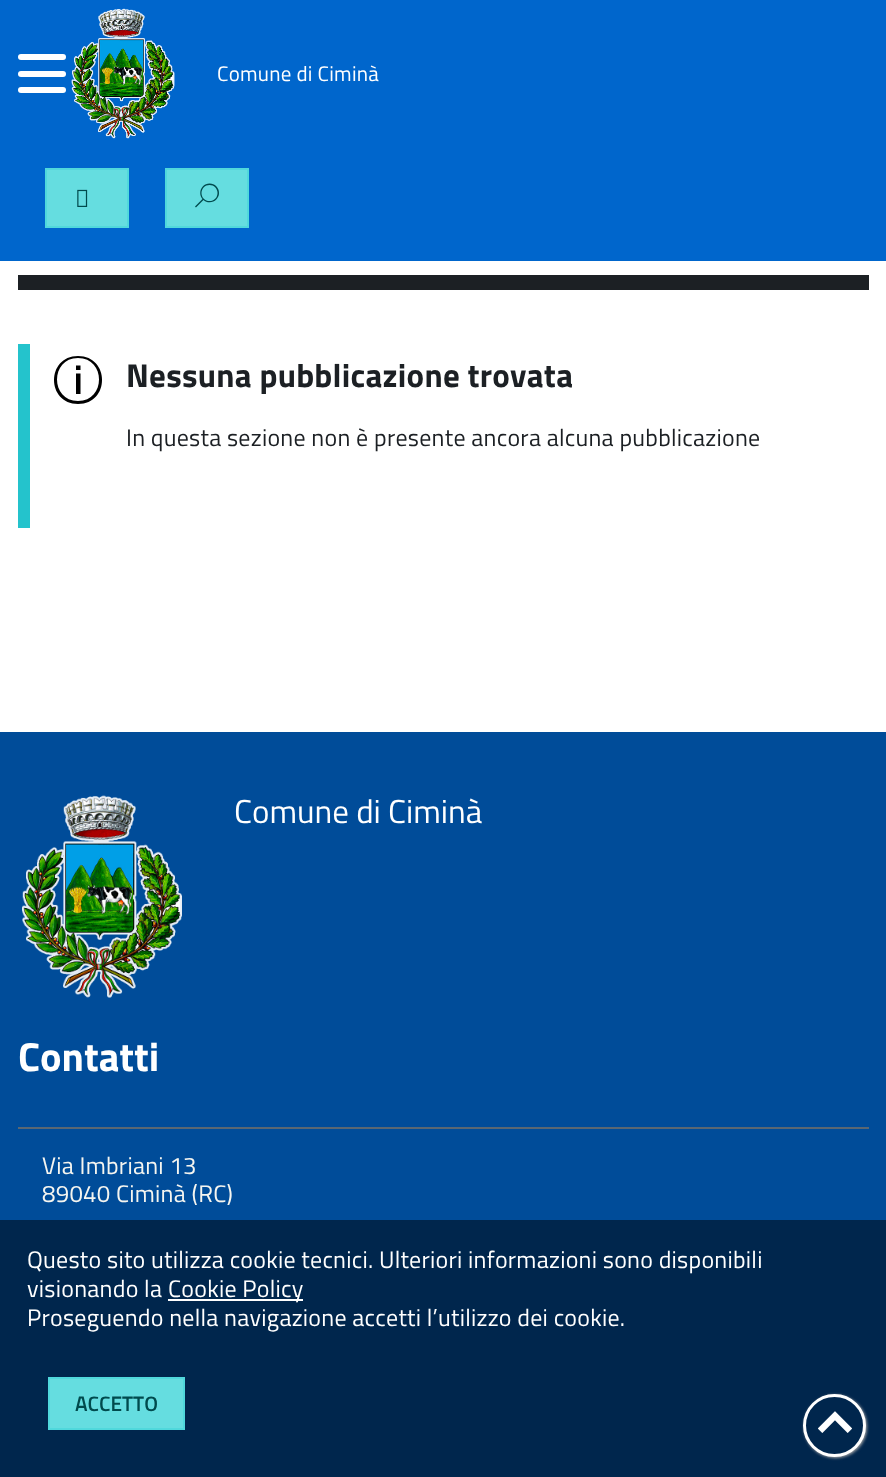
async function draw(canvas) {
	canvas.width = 886;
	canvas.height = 1477;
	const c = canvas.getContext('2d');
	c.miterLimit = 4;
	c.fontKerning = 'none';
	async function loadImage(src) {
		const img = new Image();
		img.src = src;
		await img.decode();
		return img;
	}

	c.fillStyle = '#fff';
	c.fillRect(0, 0, 886, 1477);
	c.fillStyle = '#06c';
	c.fillRect(0, 0, 886, 261);
	c.fillStyle = '#fff';
	c.beginPath();
	c.roundRect(18, 71, 48, 6, 3);
	c.fill();
	c.beginPath();
	c.roundRect(18, 54, 48, 6, 3);
	c.fill();
	c.beginPath();
	c.roundRect(18, 87, 48, 6, 3);
	c.fill();
	c.drawImage(await loadImage('img1.png'), 71, 8, 104, 131);
	c.letterSpacing = '0.25px';
	c.font = '21px Titillium Web';
	c.fillText('Comune di Ciminà', 217, 81);
	c.fillStyle = '#65dde0';
	c.beginPath();
	c.rect(46, 169, 82, 58);
	c.fill();
	c.strokeStyle = '#50d8dc';
	c.lineWidth = 2;
	c.stroke();
	c.drawImage(await loadImage('img2.png'), 77, 189, 11, 18);
	c.beginPath();
	c.rect(166, 169, 82, 58);
	c.fill();
	c.stroke();
	c.letterSpacing = '0px';
	c.font = '24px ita';
	c.fillStyle = '#004a4d';
	c.fillText('🔍', 195, 206);
	c.fillStyle = '#1c2024';
	c.fillRect(18, 275, 851, 15);
	c.fillStyle = '#000';
	c.beginPath();
	c.moveTo(78, 358);
	c.bezierCurveTo(106, 358, 106, 401, 78, 401);
	c.bezierCurveTo(50, 401, 50, 358, 78, 358);
	c.closePath();
	c.moveTo(78, 356);
	c.bezierCurveTo(46, 356, 46, 404, 78, 404);
	c.bezierCurveTo(110, 404, 110, 356, 78, 356);
	c.closePath();
	c.fill();
	c.beginPath();
	c.moveTo(76, 370);
	c.lineTo(76, 365.5);
	c.lineTo(80.5, 365.5);
	c.lineTo(80.5, 370);
	c.closePath();
	c.moveTo(76, 394);
	c.lineTo(76, 373.5);
	c.lineTo(80.5, 373.5);
	c.lineTo(80.5, 394);
	c.closePath();
	c.fill();
	c.fillStyle = '#24c3cc';
	c.fillRect(18, 344, 12, 184);
	c.letterSpacing = '0.25px';
	c.font = 'bold 33px Titillium Web';
	c.fillStyle = '#1c2024';
	c.fillText('Nessuna pubblicazione trovata', 126, 387);
	c.font = '24px Titillium Web';
	c.fillText('In questa sezione non è presente ancora alcuna pubblicazione', 126, 446);
	c.fillStyle = '#004c99';
	c.fillRect(0, 732, 886, 488);
	c.drawImage(await loadImage('img3.png'), 22, 795, 160, 203);
	c.letterSpacing = '0px';
	c.font = '33px Titillium Web';
	c.fillStyle = '#fff';
	c.fillText('Comune di Ciminà', 234, 823);
	c.font = 'bold 40.5px Titillium Web';
	c.fillText('Contatti', 18, 1071);
	c.fillStyle = '#5a6772';
	c.fillRect(18, 1127, 851, 2);
	c.letterSpacing = '0.25px';
	c.font = '24px Titillium Web';
	c.fillStyle = '#f5f5f0';
	c.fillText('Via Imbriani 13', 42, 1174);
	c.fillText('89040 Ciminà (RC)', 42, 1202);
	c.fillStyle = '#00264d';
	c.fillRect(0, 1220, 886, 257);
	c.fillStyle = '#aaa';
	c.filter = 'blur(1.5px)';
	c.beginPath();
	c.roundRect(804, 1395, 63, 63, 31.5);
	c.fill();
	c.filter = 'none';
	c.fillStyle = '#00264d';
	c.beginPath();
	c.arc(834.5, 1425.5, 30, 0, 2 * Math.PI);
	c.fill();
	c.strokeStyle = '#fff';
	c.lineWidth = 3;
	c.stroke();
	c.letterSpacing = '0px';
	c.font = 'bold 33px ita';
	c.fillStyle = '#fff';
	c.fillText('⏷', 818, 1437);
	c.letterSpacing = '0.25px';
	c.font = '24px Titillium Web';
	c.fillText('Questo sito utilizza cookie tecnici. Ulteriori informazioni sono disponibili', 27, 1268);
	c.fillText('visionando la', 27, 1297);
	c.fillRect(168, 1299, 135, 2);
	c.fillText('Cookie Policy', 168, 1297);
	c.fillText('Proseguendo nella navigazione accetti l’utilizzo dei cookie.', 27, 1326);
	c.fillStyle = '#65dde0';
	c.beginPath();
	c.rect(49, 1378, 135, 51);
	c.fill();
	c.strokeStyle = '#50d8dc';
	c.lineWidth = 2;
	c.stroke();
	c.letterSpacing = '0px';
	c.font = '600 21px Titillium Web';
	c.fillStyle = '#004a4d';
	c.fillText('ACCETTO', 75, 1411);
}

draw(document.querySelector('canvas'));
